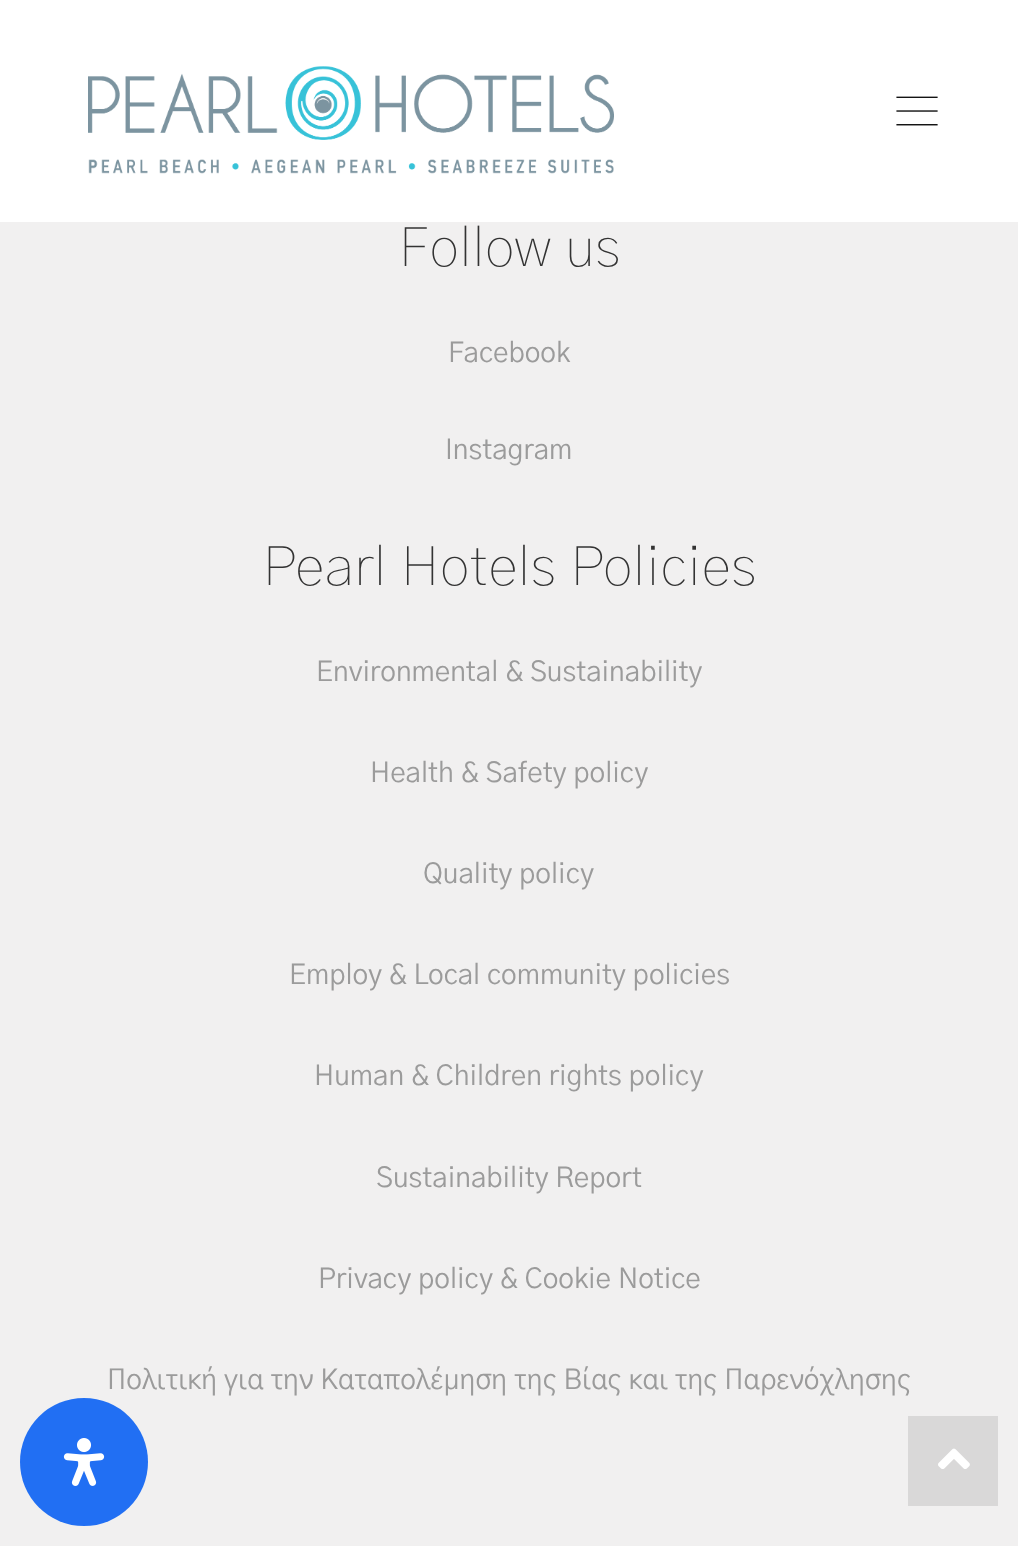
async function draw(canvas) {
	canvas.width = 1018;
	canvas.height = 1546;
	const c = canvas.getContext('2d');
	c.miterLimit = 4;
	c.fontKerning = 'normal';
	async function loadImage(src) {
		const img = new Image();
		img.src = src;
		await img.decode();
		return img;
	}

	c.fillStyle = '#f1f0f0';
	c.fillRect(0, 0, 1018, 1546);
	c.fillStyle = '#fff';
	c.fillRect(0, 0, 1018, 222);
	c.drawImage(await loadImage('img1.png'), 88, 66, 526, 108);
	c.drawImage(await loadImage('img2.png'), 896, 96, 42, 30);
	c.font = '100 56px "Gothic A1"';
	c.fillStyle = '#333';
	c.fillText('Follow us', 398, 266);
	c.font = '28px "Gothic A1"';
	c.fillStyle = '#9b9b9b';
	c.fillText('Facebook', 448, 362);
	c.fillText('Instagram', 445, 459);
	c.font = '100 56px "Gothic A1"';
	c.fillStyle = '#333';
	c.fillText('Pearl Hotels Policies', 262, 585);
	c.font = '28px "Gothic A1"';
	c.fillStyle = '#9b9b9b';
	for (const [text, x, y] of [
		['Environmental & Sustainability', 316, 681],
		['Health & Safety policy', 370, 782],
		['Quality policy', 423, 883],
		['Employ & Local community policies', 289, 984],
		['Human & Children rights policy', 314, 1085],
		['Sustainability Report', 376, 1187],
		['Privacy policy & Cookie Notice', 318, 1288],
		['Πολιτική για την Καταπολέμηση της Βίας και της Παρενόχλησης', 107, 1389],
	]) {
		c.fillText(text, x, y);
	}
	c.fillStyle = '#d9d8d8';
	c.fillRect(908, 1416, 90, 90);
	c.drawImage(await loadImage('img3.png'), 938, 1448, 32, 21);
	c.fillStyle = '#216ff3';
	c.beginPath();
	c.arc(84, 1462, 64, 0, 2 * Math.PI);
	c.fill();
	c.drawImage(await loadImage('img4.png'), 63, 1438, 42, 48);
}

draw(document.querySelector('canvas'));
